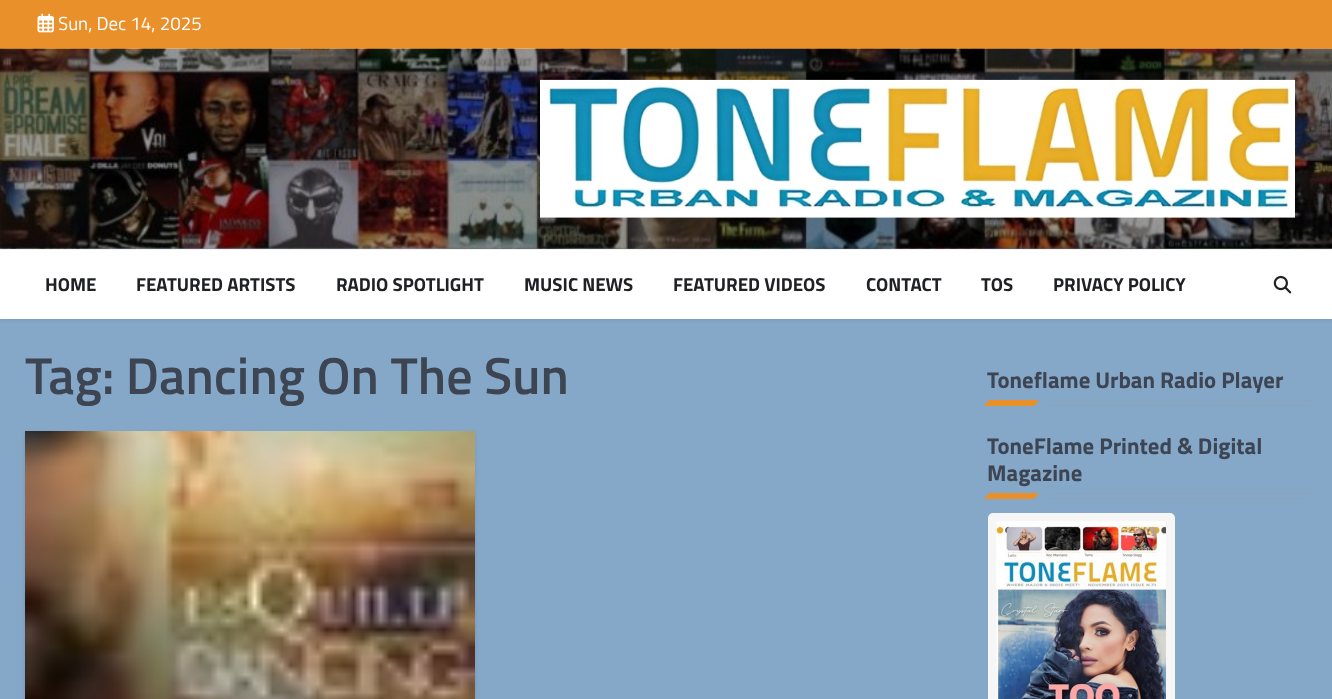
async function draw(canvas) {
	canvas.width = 1332;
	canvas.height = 699;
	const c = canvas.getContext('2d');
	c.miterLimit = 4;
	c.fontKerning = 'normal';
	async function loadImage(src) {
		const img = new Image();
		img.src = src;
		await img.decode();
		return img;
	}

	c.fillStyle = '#85a8c9';
	c.fillRect(0, 0, 1332, 699);
	c.fillStyle = '#0000001a';
	c.filter = 'blur(2px)';
	c.beginPath();
	c.rect(0, 1, 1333, 319);
	c.fill();
	c.filter = 'none';
	c.fillStyle = '#ea902a';
	c.fillRect(0, 0, 1332, 49);
	c.drawImage(await loadImage('img1.png'), 37, 13, 17, 20);
	c.font = '18.75px Titillium Web';
	c.fillStyle = '#fff';
	c.fillText('Sun, Dec 14, 2025', 58, 30);
	c.drawImage(await loadImage('img2.png'), 0, 48, 1332, 201);
	c.drawImage(await loadImage('img3.png'), 540, 79, 755, 139);
	c.fillRect(0, 250, 1332, 69);
	c.fillStyle = '#f1f1f1';
	c.fillRect(0, 249, 1332, 1);
	c.font = 'bold 18.75px Titillium Web';
	c.fillStyle = '#202124';
	for (const [text, x, y] of [
		['HOME', 45, 291],
		['FEATURED ARTISTS', 136, 291],
		['RADIO SPOTLIGHT', 336, 291],
		['MUSIC NEWS', 524, 291],
		['FEATURED VIDEOS', 673, 291],
		['CONTACT', 866, 291],
		['TOS', 981, 291],
		['PRIVACY POLICY', 1053, 291],
	]) {
		c.fillText(text, x, y);
	}
	c.drawImage(await loadImage('img4.png'), 1273, 275, 19, 19);
	c.font = '600 52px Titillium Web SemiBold';
	c.fillStyle = '#3d4452';
	c.fillText('Tag: Dancing On The Sun', 25, 394);
	c.fillStyle = '#0000001a';
	c.filter = 'blur(2px)';
	c.beginPath();
	c.rect(25, 433, 450, 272);
	c.fill();
	c.filter = 'none';
	c.drawImage(await loadImage('img5.png'), 25, 431, 450, 268);
	c.font = 'bold 22.75px Titillium Web';
	c.fillStyle = '#3d4452';
	c.fillText('Toneflame Urban Radio Player', 987, 388);
	c.fillStyle = '#ea902a';
	c.beginPath();
	c.moveTo(989, 400);
	c.lineTo(1039, 400);
	c.lineTo(1034, 406);
	c.lineTo(984, 406);
	c.closePath();
	c.fill();
	c.fillStyle = '#8ca4bb';
	c.beginPath();
	c.moveTo(1055, 400);
	c.lineTo(1313, 400);
	c.lineTo(1311, 401);
	c.lineTo(1053, 401);
	c.closePath();
	c.fill();
	c.beginPath();
	c.moveTo(1046, 405);
	c.lineTo(1304, 405);
	c.lineTo(1302, 406);
	c.lineTo(1044, 406);
	c.closePath();
	c.fill();
	c.fillStyle = '#3d4452';
	c.fillText('ToneFlame Printed & Digital', 987, 454);
	c.fillText('Magazine', 987, 481);
	c.fillStyle = '#ea902a';
	c.beginPath();
	c.moveTo(989, 493);
	c.lineTo(1039, 493);
	c.lineTo(1034, 499);
	c.lineTo(984, 499);
	c.closePath();
	c.fill();
	c.fillStyle = '#8ca4bb';
	c.beginPath();
	c.moveTo(1055, 493);
	c.lineTo(1313, 493);
	c.lineTo(1311, 494);
	c.lineTo(1053, 494);
	c.closePath();
	c.fill();
	c.beginPath();
	c.moveTo(1046, 498);
	c.lineTo(1304, 498);
	c.lineTo(1302, 499);
	c.lineTo(1044, 499);
	c.closePath();
	c.fill();
	c.beginPath();
	c.roundRect(992.5, 517.5, 178, 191, 0.5);
	c.strokeStyle = '#f6f6f6';
	c.lineWidth = 9;
	c.stroke();
	c.drawImage(await loadImage('img6.png'), 996, 521, 170, 178);
}

draw(document.querySelector('canvas'));
